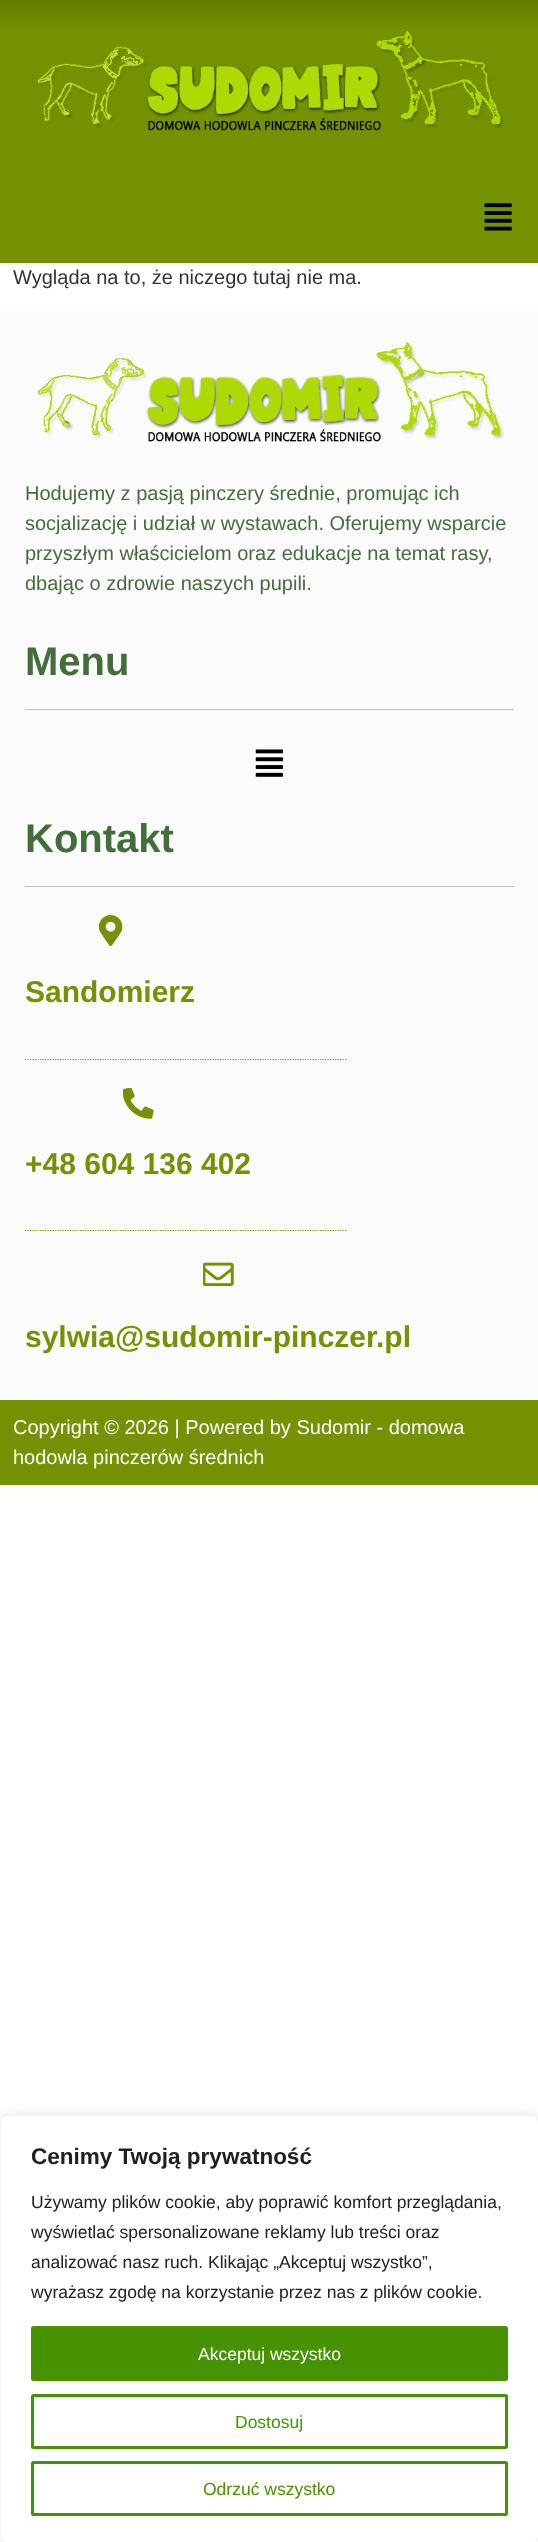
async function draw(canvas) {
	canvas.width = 538;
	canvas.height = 2542;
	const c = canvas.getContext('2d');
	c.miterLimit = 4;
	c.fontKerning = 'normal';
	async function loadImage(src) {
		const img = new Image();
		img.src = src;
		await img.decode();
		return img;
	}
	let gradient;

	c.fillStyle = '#fff';
	c.fillRect(0, 0, 538, 2542);
	gradient = c.createLinearGradient(269, 0, 269, 263);
	gradient.addColorStop(0, '#637c00');
	gradient.addColorStop(0.12, '#749200');
	c.fillStyle = gradient;
	c.fillRect(0, 0, 538, 263);
	c.drawImage(await loadImage('img1.png'), 37, 31, 467, 100);
	c.drawImage(await loadImage('img2.png'), 484, 203, 28, 28);
	c.font = '20px Liberation Sans';
	c.fillStyle = '#333';
	c.fillText('Wygląda na to, że niczego tutaj nie ma.', 13, 284);
	c.fillStyle = '#fbfbfb';
	c.fillRect(0, 311, 538, 1089);
	c.drawImage(await loadImage('img3.png'), 37, 342, 467, 100);
	c.fillStyle = '#446d3c';
	for (const [text, x, y] of [
		['Hodujemy z pasją pinczery średnie, promując ich', 25, 500],
		['socjalizację i udział w wystawach. Oferujemy wsparcie', 25, 530],
		['przyszłym właścicielom oraz edukacje na temat rasy,', 25, 560],
		['dbając o zdrowie naszych pupili.', 25, 590],
	]) {
		c.fillText(text, x, y);
	}
	c.font = 'bold 40px Liberation Sans';
	c.fillText('Menu', 25, 675);
	c.fillStyle = '#b9c8b6';
	c.fillRect(25, 709, 489, 1);
	c.drawImage(await loadImage('img4.png'), 255, 749, 29, 28);
	c.fillStyle = '#446d3c';
	c.fillText('Kontakt', 25, 852);
	c.fillStyle = '#b9c8b6';
	c.fillRect(25, 886, 489, 1);
	c.drawImage(await loadImage('img5.png'), 98, 915, 25, 31);
	c.font = 'bold 30px Liberation Sans';
	c.fillStyle = '#749200';
	c.fillText('Sandomierz', 25, 1002);
	c.beginPath();
	c.moveTo(25, 1059.5);
	c.lineTo(347.5, 1059.5);
	c.strokeStyle = '#749200';
	c.lineWidth = 1.2;
	c.setLineDash([1.25, 1.25]);
	c.stroke();
	c.drawImage(await loadImage('img6.png'), 123, 1088, 31, 31);
	c.fillText('+48 604 136 402', 25, 1174);
	c.beginPath();
	c.moveTo(25, 1230.5);
	c.lineTo(347.5, 1230.5);
	c.stroke();
	c.drawImage(await loadImage('img7.png'), 203, 1262, 31, 25);
	c.fillText('sylwia@sudomir-pinczer.pl', 25, 1347);
	c.fillRect(0, 1400, 538, 85);
	c.font = '20px Liberation Sans';
	c.fillStyle = '#fff';
	c.fillText('Copyright © 2026 | Powered by Sudomir - domowa', 13, 1434);
	c.fillText('hodowla pinczerów średnich', 13, 1464);
	c.fillStyle = '#acabab4d';
	c.filter = 'blur(6px)';
	c.beginPath();
	c.roundRect(0, 2114, 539, 427, 8);
	c.fill();
	c.filter = 'none';
	c.fillStyle = '#fff';
	c.beginPath();
	c.roundRect(0.5, 2115.5, 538, 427, 7.5);
	c.fill();
	c.strokeStyle = '#f4f4f4';
	c.lineWidth = 1;
	c.setLineDash([]);
	c.stroke();
	c.font = 'bold 22.5px Liberation Sans';
	c.fillStyle = '#212121';
	c.fillText('Cenimy Twoją prywatność', 31, 2164);
	c.font = '17.5px Liberation Sans';
	for (const [text, x, y] of [
		['Używamy plików cookie, aby poprawić komfort przeglądania,', 31, 2208],
		['wyświetlać spersonalizowane reklamy lub treści oraz', 31, 2238],
		['analizować nasz ruch. Klikając „Akceptuj wszystko”,', 31, 2268],
		['wyrażasz zgodę na korzystanie przez nas z plików cookie.', 31, 2298],
	]) {
		c.fillText(text, x, y);
	}
	c.fillStyle = '#479200';
	c.beginPath();
	c.roundRect(32.5, 2327.5, 474, 52, 1);
	c.fill();
	c.strokeStyle = '#479200';
	c.lineWidth = 3;
	c.stroke();
	c.fillStyle = '#fff';
	c.fillText('Akceptuj wszystko', 198, 2360);
	c.beginPath();
	c.roundRect(32.5, 2395.5, 474, 52, 1);
	c.stroke();
	c.fillStyle = '#479200';
	c.fillText('Dostosuj', 235, 2428);
	c.beginPath();
	c.roundRect(32.5, 2462.5, 474, 52, 1);
	c.stroke();
	c.fillText('Odrzuć wszystko', 203, 2495);
}

draw(document.querySelector('canvas'));
